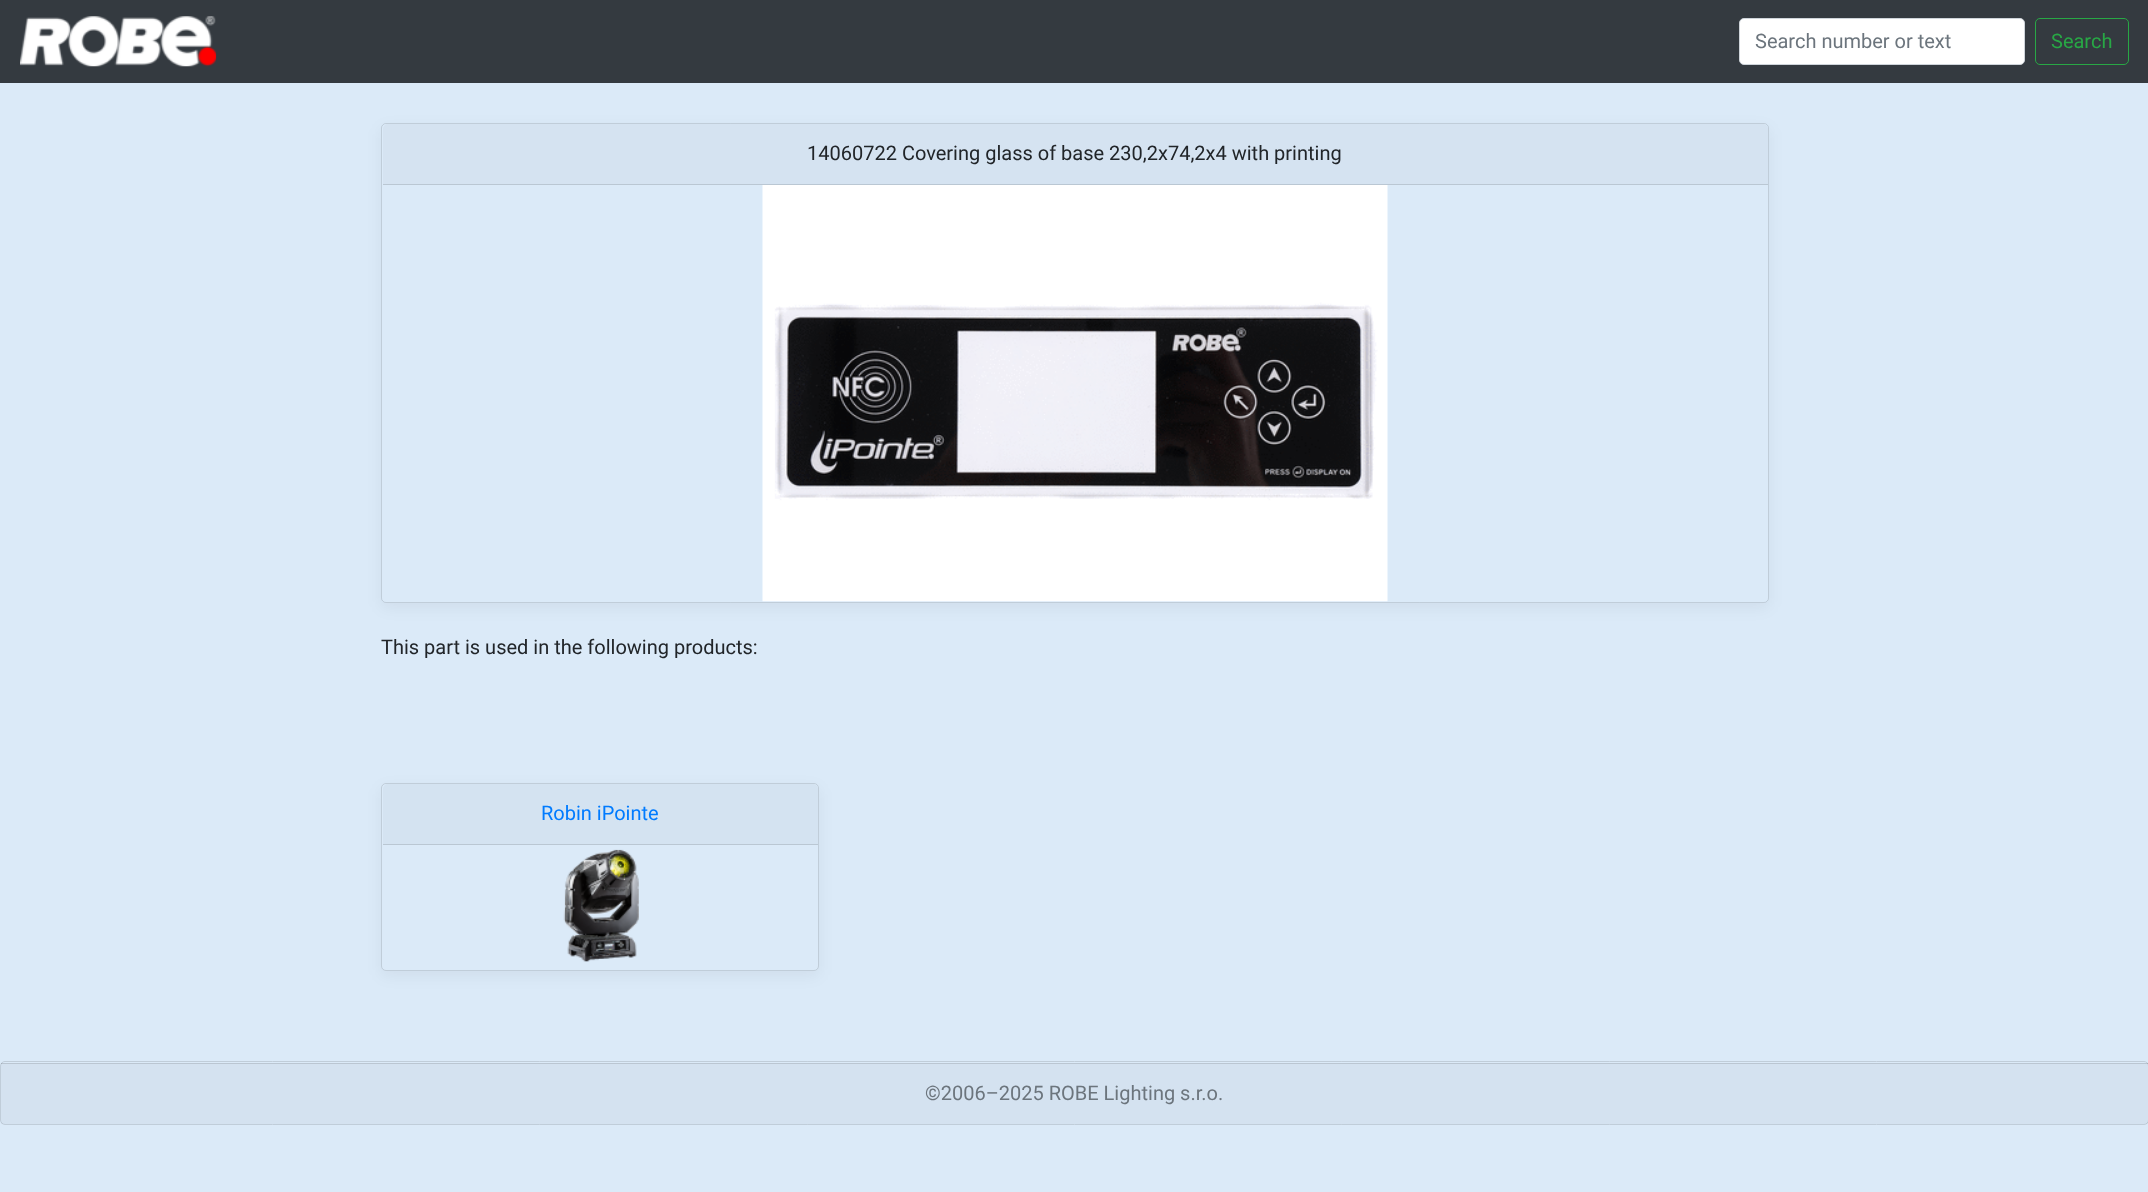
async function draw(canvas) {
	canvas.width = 2148;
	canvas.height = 1192;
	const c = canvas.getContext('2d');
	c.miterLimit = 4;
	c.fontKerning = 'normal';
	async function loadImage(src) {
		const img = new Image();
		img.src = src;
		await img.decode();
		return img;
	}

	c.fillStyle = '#dbeaf8';
	c.fillRect(0, 0, 2148, 1192);
	c.fillStyle = '#343a40';
	c.fillRect(0, 0, 2148, 83);
	c.drawImage(await loadImage('img1.png'), 20, 16, 197, 51);
	c.fillStyle = '#fff';
	c.beginPath();
	c.roundRect(1739.5, 18.5, 285, 46, 4.5);
	c.fill();
	c.strokeStyle = '#ced4da';
	c.stroke();
	c.font = '20px Roboto';
	c.fillStyle = '#6c757d';
	c.fillText('Search number or text', 1755, 48);
	c.beginPath();
	c.roundRect(2035.5, 18.5, 93, 46, 4.5);
	c.strokeStyle = '#28a745';
	c.stroke();
	c.fillStyle = '#28a745';
	c.fillText('Search', 2051, 48);
	c.fillStyle = '#0000000d';
	c.filter = 'blur(7.5px)';
	c.beginPath();
	c.roundRect(381, 128, 1388, 480, 5);
	c.fill();
	c.filter = 'none';
	c.fillStyle = '#dbeaf8';
	c.beginPath();
	c.roundRect(381, 123, 1388, 480, 5);
	c.fill();
	c.beginPath();
	c.roundRect(381.5, 123.5, 1387, 479, 4.5);
	c.strokeStyle = '#0000001f';
	c.stroke();
	c.fillStyle = '#d5e3f1';
	c.beginPath();
	c.roundRect(383, 124, 1385, 61, [5, 5, 0, 0]);
	c.fill();
	c.fillStyle = '#bac7d3';
	c.fillRect(383, 184, 1385, 1);
	c.fillStyle = '#212529';
	c.fillText('14060722 Covering glass of base 230,2x74,2x4 with printing', 807, 160);
	c.drawImage(await loadImage('img2.png'), 762, 185, 626, 417);
	c.fillText('This part is used in the following products:', 381, 654);
	c.fillStyle = '#0000000d';
	c.filter = 'blur(7.5px)';
	c.beginPath();
	c.roundRect(381, 788, 438, 188, 5);
	c.fill();
	c.filter = 'none';
	c.fillStyle = '#dbeaf8';
	c.beginPath();
	c.roundRect(381.5, 783.5, 437, 187, 4.5);
	c.fill();
	c.strokeStyle = '#c0cdd9';
	c.stroke();
	c.fillStyle = '#d4e3f1';
	c.beginPath();
	c.roundRect(383, 784, 435, 61, [5, 5, 0, 0]);
	c.fill();
	c.fillStyle = '#bac7d3';
	c.fillRect(383, 844, 435, 1);
	c.fillStyle = '#007bff';
	c.fillText('Robin iPointe', 541, 820);
	c.drawImage(await loadImage('img3.png'), 563, 849, 76, 113);
	c.beginPath();
	c.roundRect(0.5, 1061.5, 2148, 63, 4.5);
	c.stroke();
	c.fillStyle = '#00000008';
	c.fillRect(1, 1063, 2147, 61);
	c.fillStyle = '#0000001f';
	c.fillRect(1, 1063, 2147, 1);
	c.fillStyle = '#6c757d';
	c.fillText('©2006–2025 ROBE Lighting s.r.o.', 925, 1100);
}

draw(document.querySelector('canvas'));
